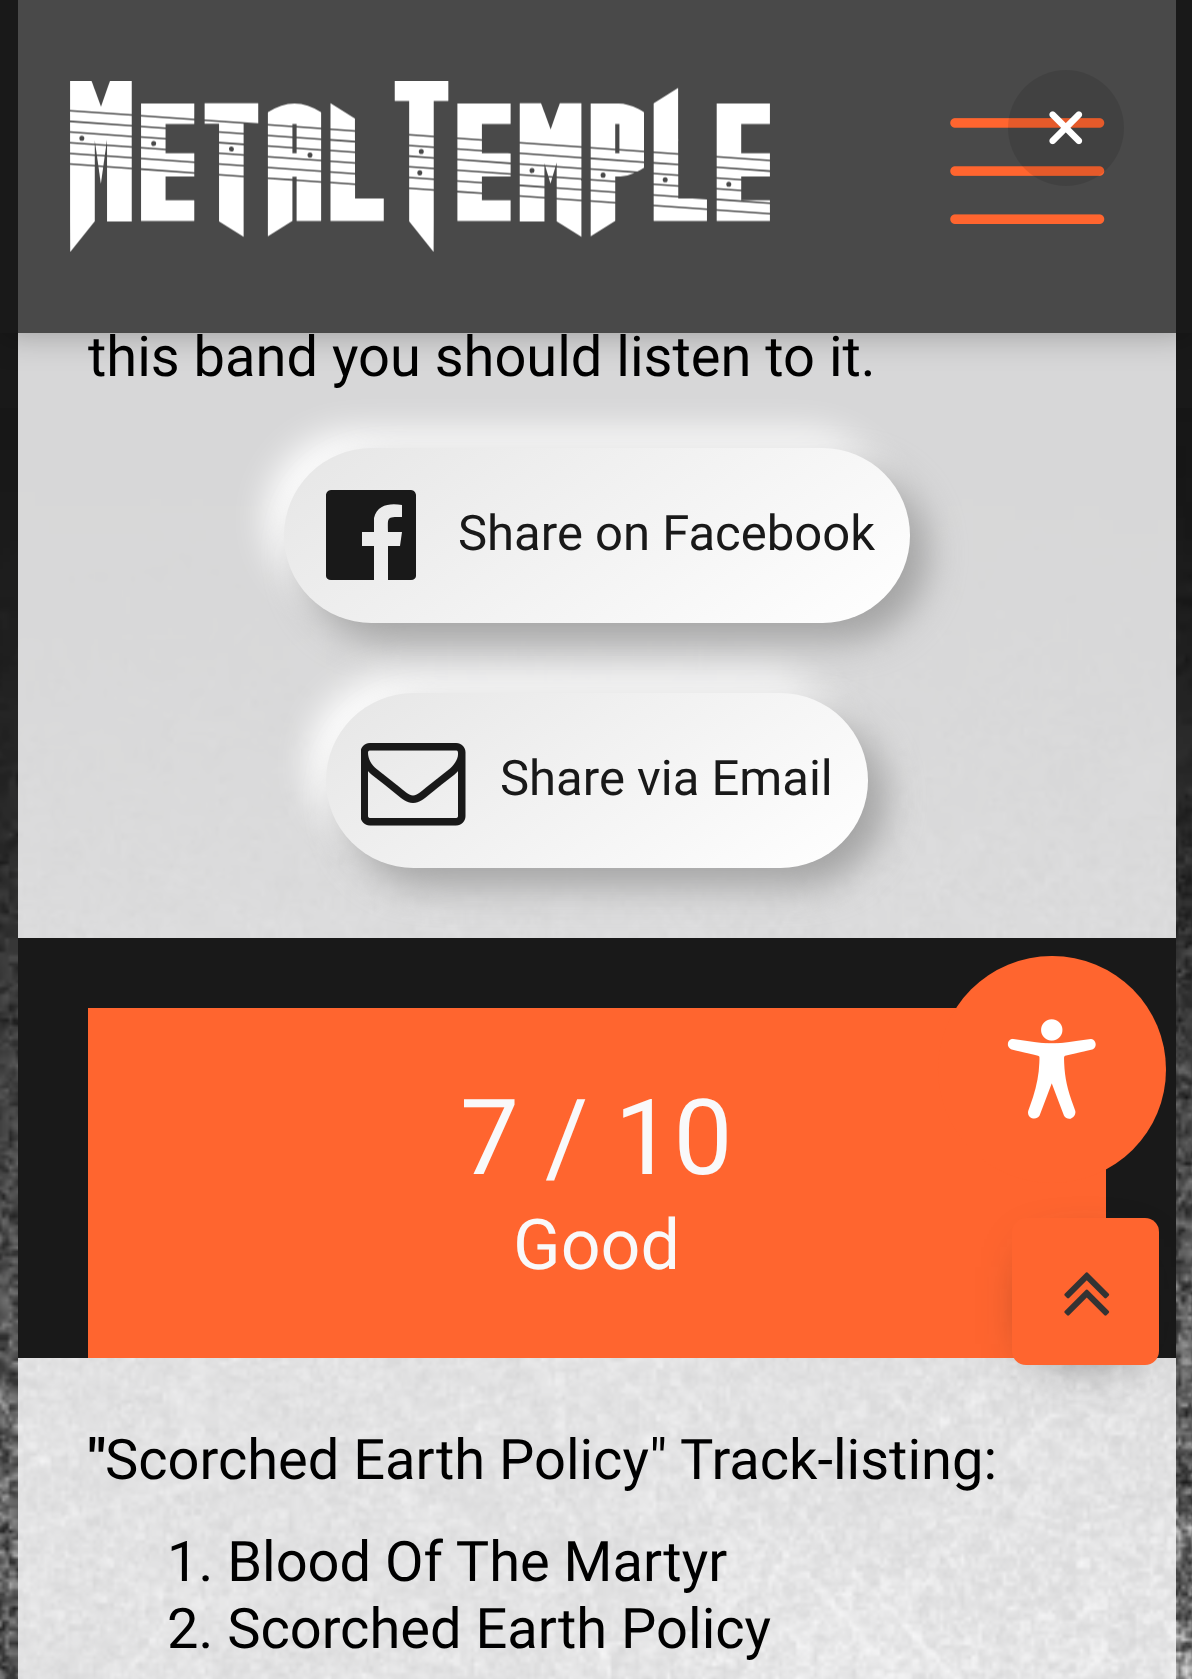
async function draw(canvas) {
	canvas.width = 1192;
	canvas.height = 1679;
	const c = canvas.getContext('2d');
	c.miterLimit = 4;
	c.fontKerning = 'normal';
	async function loadImage(src) {
		const img = new Image();
		img.src = src;
		await img.decode();
		return img;
	}
	let gradient;

	c.fillStyle = '#191919';
	c.fillRect(0, 0, 1192, 1679);
	c.fillStyle = '#d7d7d8';
	c.fillRect(18, 0, 1158, 408);
	c.drawImage(await loadImage('img1.png'), 0, 408, 1192, 1271);
	c.save();
	c.beginPath();
	c.moveTo(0, 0);
	c.lineTo(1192, 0);
	c.lineTo(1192, 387);
	c.lineTo(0, 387);
	c.closePath();
	c.moveTo(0, 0);
	c.lineTo(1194, 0);
	c.lineTo(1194, 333);
	c.lineTo(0, 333);
	c.closePath();
	c.clip('evenodd');
	c.fillStyle = '#0000004d';
	c.filter = 'blur(17.5px)';
	c.beginPath();
	c.rect(0, 0, 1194, 333);
	c.fill();
	c.filter = 'none';
	c.restore();
	c.fillStyle = '#191919bf';
	c.fillRect(18, 0, 1158, 333);
	c.drawImage(await loadImage('img2.png'), 70, 81, 700, 171);
	c.drawImage(await loadImage('img3.png'), 950, 118, 155, 106);
	c.fillStyle = '#0000001a';
	c.beginPath();
	c.arc(1066, 128, 58, 0, 2 * Math.PI);
	c.fill();
	c.drawImage(await loadImage('img4.png'), 1049, 111, 34, 34);
	c.font = '56px Roboto';
	c.fillStyle = '#000';
	c.fillText('this band you should listen to it.', 88, 376);
	c.fillStyle = '#fff';
	c.filter = 'blur(17.5px)';
	c.beginPath();
	c.roundRect(266, 431, 627, 175, 87.5);
	c.fill();
	c.filter = 'none';
	c.fillStyle = '#a3a3a3';
	c.filter = 'blur(17.5px)';
	c.beginPath();
	c.roundRect(301, 466, 627, 175, 87.5);
	c.fill();
	c.filter = 'none';
	gradient = c.createLinearGradient(453, 330, 741, 741);
	gradient.addColorStop(0, '#e6e6e6');
	gradient.addColorStop(1, '#fff');
	c.fillStyle = gradient;
	c.beginPath();
	c.roundRect(284, 448, 626, 175, 87.5);
	c.fill();
	c.fillStyle = '#191919';
	c.beginPath();
	c.moveTo(411, 490);
	c.bezierCurveTo(414, 490, 416, 493, 416, 495);
	c.lineTo(416, 576);
	c.bezierCurveTo(416, 578, 414, 580, 411, 580);
	c.lineTo(388, 580);
	c.lineTo(388, 546);
	c.lineTo(400, 546);
	c.lineTo(402, 532);
	c.lineTo(388, 532);
	c.bezierCurveTo(388, 517, 386, 517, 402, 517);
	c.lineTo(402, 505);
	c.bezierCurveTo(391, 503, 377, 504, 374, 518);
	c.lineTo(374, 532);
	c.lineTo(362, 532);
	c.lineTo(362, 546);
	c.lineTo(374, 546);
	c.lineTo(374, 580);
	c.lineTo(331, 580);
	c.bezierCurveTo(328, 580, 326, 578, 326, 576);
	c.lineTo(326, 495);
	c.bezierCurveTo(326, 493, 328, 490, 331, 490);
	c.closePath();
	c.fill();
	c.font = '49px Roboto';
	c.fillText('Share on Facebook', 458, 550);
	c.fillStyle = '#fff';
	c.filter = 'blur(17.5px)';
	c.beginPath();
	c.roundRect(308, 676, 543, 175, 87.5);
	c.fill();
	c.filter = 'none';
	c.fillStyle = '#a3a3a3';
	c.filter = 'blur(17.5px)';
	c.beginPath();
	c.roundRect(343, 711, 543, 175, 87.5);
	c.fill();
	c.filter = 'none';
	gradient = c.createLinearGradient(466, 594, 727, 967);
	gradient.addColorStop(0, '#e6e6e6');
	gradient.addColorStop(1, '#fff');
	c.fillStyle = gradient;
	c.beginPath();
	c.roundRect(326, 693, 542, 175, 87.5);
	c.fill();
	c.drawImage(await loadImage('img5.png'), 361, 743, 105, 83);
	c.fillStyle = '#191919';
	c.fillText('Share via Email', 500, 795);
	c.fillRect(18, 938, 1158, 420);
	c.fillStyle = '#ff652f';
	c.fillRect(88, 1008, 1018, 350);
	c.font = '105px Roboto';
	c.fillStyle = '#f9f9fa';
	c.fillText('7 / 10', 460, 1174);
	c.font = '70px Roboto';
	c.fillText('Good', 513, 1269);
	c.font = 'bold 56px Roboto';
	c.fillStyle = '#000';
	c.fillText('"', 88, 1479);
	c.font = '56px Roboto';
	for (const [text, x, y] of [
		['Scorched Earth Policy" Track-listing:', 105, 1479],
		['1. Blood Of The Martyr', 167, 1581],
		['2. Scorched Earth Policy', 167, 1648],
	]) {
		c.fillText(text, x, y);
	}
	c.fillStyle = '#1e1e1e';
	c.filter = 'blur(30px)';
	c.beginPath();
	c.rect(1047, 1267, 77, 77);
	c.fill();
	c.filter = 'none';
	c.fillStyle = '#ff652f';
	c.beginPath();
	c.roundRect(938, 956, 228, 227, 113.5);
	c.fill();
	c.drawImage(await loadImage('img6.png'), 1007, 1019, 89, 100);
	c.beginPath();
	c.roundRect(1012, 1218, 147, 147, 14);
	c.fill();
	c.drawImage(await loadImage('img7.png'), 1064, 1272, 46, 44);
}

draw(document.querySelector('canvas'));
